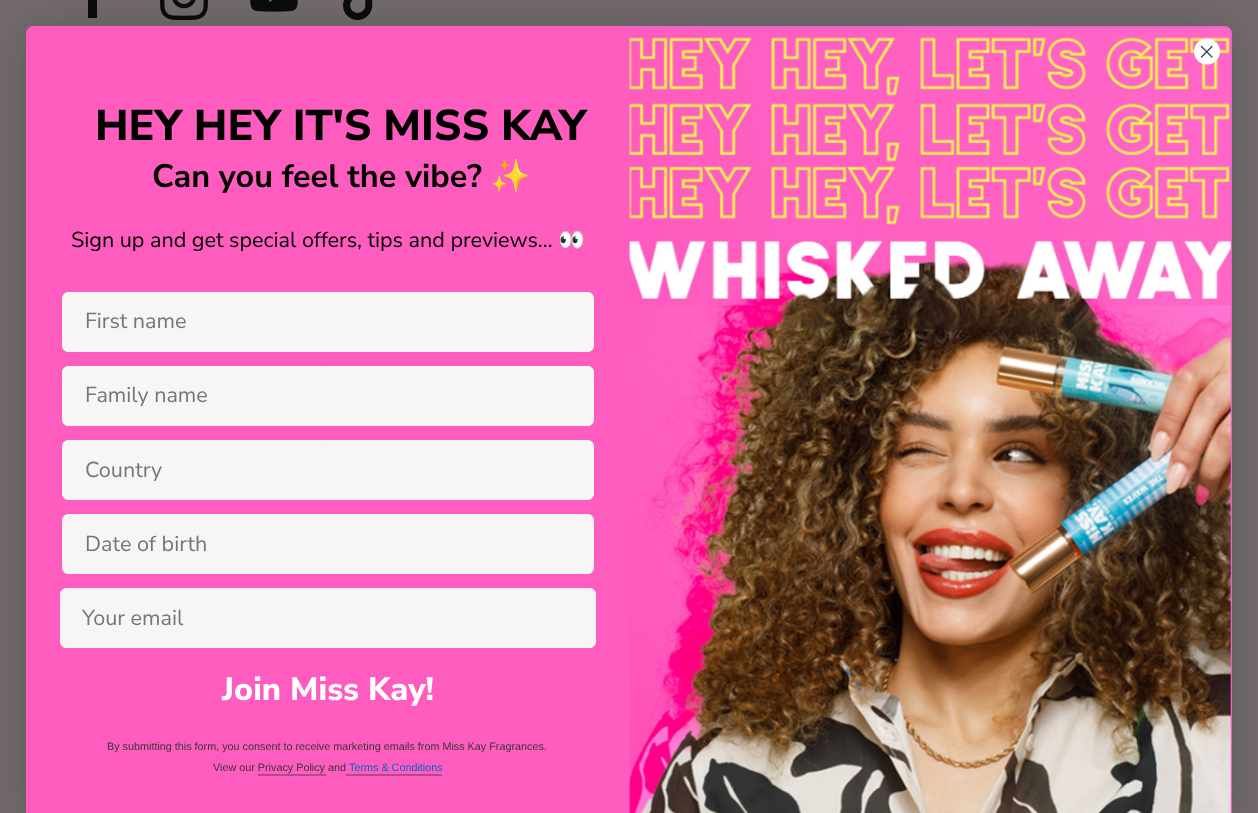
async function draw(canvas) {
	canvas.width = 1258;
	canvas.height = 813;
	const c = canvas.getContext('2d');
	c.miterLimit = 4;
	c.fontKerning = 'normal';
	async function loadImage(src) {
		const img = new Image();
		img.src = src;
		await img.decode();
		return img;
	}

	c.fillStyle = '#726a6d';
	c.fillRect(0, 0, 1258, 813);
	c.fillStyle = '#0c0c0c';
	c.fillRect(88, 0, 9, 18);
	c.drawImage(await loadImage('img1.png'), 160, 0, 48, 20);
	c.drawImage(await loadImage('img2.png'), 250, 0, 48, 12);
	c.drawImage(await loadImage('img3.png'), 343, 0, 30, 20);
	c.fillStyle = '#00000026';
	c.filter = 'blur(20px)';
	c.beginPath();
	c.roundRect(26, 26, 1206, 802, 8);
	c.fill();
	c.filter = 'none';
	c.fillStyle = '#fe5cbe';
	c.beginPath();
	c.moveTo(34, 26);
	c.lineTo(1224, 26);
	c.bezierCurveTo(1228.5, 26, 1232, 29.5, 1232, 34);
	c.lineTo(1232, 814);
	c.lineTo(26, 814);
	c.lineTo(26, 34);
	c.bezierCurveTo(26, 29.5, 29.5, 26, 34, 26);
	c.closePath();
	c.fill();
	c.fillStyle = '#e665c6';
	c.beginPath();
	c.moveTo(630, 26);
	c.lineTo(1224, 26);
	c.bezierCurveTo(1228.5, 26, 1232, 29.5, 1232, 34);
	c.lineTo(1232, 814);
	c.lineTo(630, 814);
	c.closePath();
	c.fill();
	c.drawImage(await loadImage('img4.png'), 629, 28, 602, 785);
	c.fillStyle = '#fff';
	c.beginPath();
	c.arc(1207, 51.5, 13, 0, 2 * Math.PI);
	c.fill();
	c.beginPath();
	c.moveTo(1201.5, 46.5);
	c.lineTo(1212, 57);
	c.moveTo(1201.5, 57);
	c.lineTo(1212, 46.5);
	c.closePath();
	c.strokeStyle = '#373f47';
	c.lineWidth = 1.3;
	c.lineCap = 'round';
	c.lineJoin = 'round';
	c.stroke();
	c.font = '800 43.1px Nunito Sans';
	c.fillStyle = '#000';
	c.fillText('HEY HEY IT\'S MISS KAY', 95, 140);
	c.font = 'bold 32.4px Nunito Sans';
	c.fillText('Can you feel the vibe?', 152, 187);
	c.font = 'bold 32.4px Noto Color Emoji';
	c.fillText('✨', 490, 187);
	c.font = '21.6px Nunito Sans';
	c.fillText('Sign up and get special offers, tips and previews…', 71, 247);
	c.font = '21.6px Noto Color Emoji';
	c.fillText('👀', 558, 247);
	c.fillStyle = '#f8f5f5';
	c.beginPath();
	c.roundRect(62.5, 292.5, 531, 59, 5.5);
	c.fill();
	c.strokeStyle = '#f8f5f5';
	c.lineWidth = 1;
	c.lineJoin = 'miter';
	c.stroke();
	c.font = '21.6px Nunito Sans';
	c.fillStyle = '#767676';
	c.fillText('First name', 85, 328);
	c.fillStyle = '#f8f5f5';
	c.beginPath();
	c.roundRect(62.5, 366.5, 531, 59, 5.5);
	c.fill();
	c.stroke();
	c.fillStyle = '#767676';
	c.fillText('Family name', 85, 402);
	c.fillStyle = '#f8f5f5';
	c.beginPath();
	c.roundRect(62.5, 440.5, 531, 59, 5.5);
	c.fill();
	c.stroke();
	c.fillStyle = '#767676';
	c.fillText('Country', 85, 477);
	c.fillStyle = '#f8f5f5';
	c.beginPath();
	c.roundRect(62.5, 514.5, 531, 59, 5.5);
	c.fill();
	c.stroke();
	c.fillStyle = '#767676';
	c.fillText('Date of birth', 85, 551);
	c.fillStyle = '#f8f5f5';
	c.beginPath();
	c.roundRect(60.5, 588.5, 535, 59, 5.5);
	c.fill();
	c.stroke();
	c.fillStyle = '#767676';
	c.fillText('Your email', 82, 625);
	c.font = '800 32.4px Nunito Sans';
	c.fillStyle = '#fff';
	c.fillText('Join Miss Kay!', 222, 700);
	c.font = '10.8px Liberation Sans';
	c.fillStyle = '#343739';
	c.fillText('By submitting this form, you consent to receive marketing emails from Miss Kay Fragrances.', 107, 750);
	c.fillText('View our Privacy Policy and', 213, 771);
	c.fillStyle = '#b34a8a';
	c.fillRect(258, 774, 68, 2);
	c.fillRect(346, 774, 96, 2);
	c.fillStyle = '#06c';
	c.fillText('Terms & Conditions', 349, 771);
}

draw(document.querySelector('canvas'));
